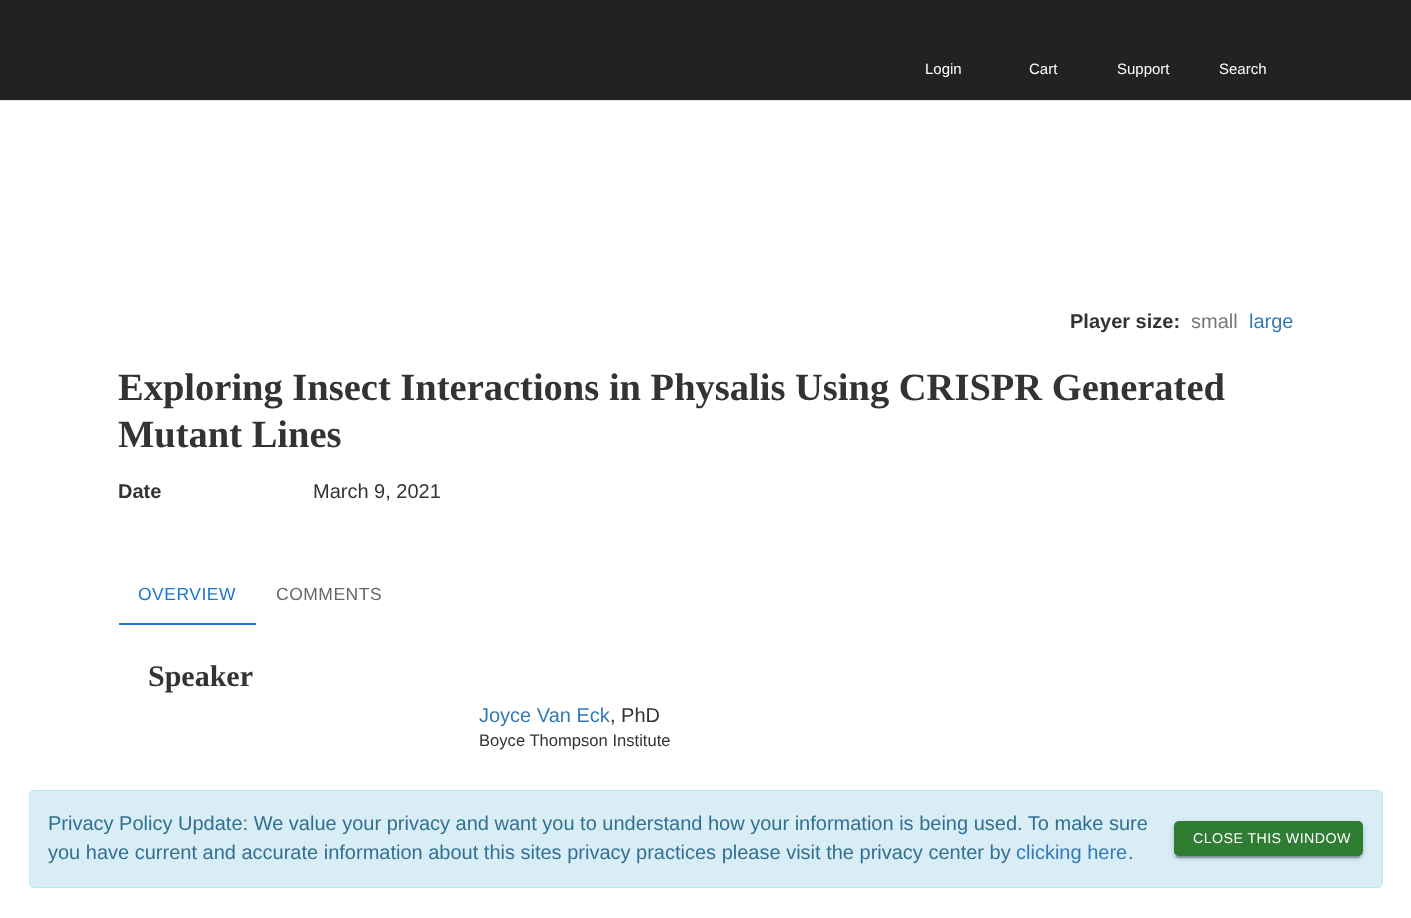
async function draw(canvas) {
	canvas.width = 1411;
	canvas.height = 918;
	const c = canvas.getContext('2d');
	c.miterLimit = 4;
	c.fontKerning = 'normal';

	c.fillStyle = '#fff';
	c.fillRect(0, 0, 1411, 918);
	c.fillStyle = '#e4e4e4';
	c.fillRect(0, 100, 1411, 1);
	c.fillStyle = '#222';
	c.fillRect(0, 0, 1411, 100);
	c.font = '15px Liberation Sans';
	c.fillStyle = '#fff';
	for (const [text, x, y] of [
		['Login', 925, 74],
		['Cart', 1029, 74],
		['Support', 1117, 74],
		['Search', 1219, 74],
	]) {
		c.fillText(text, x, y);
	}
	c.font = 'bold 20px Liberation Sans';
	c.fillStyle = '#333';
	c.fillText('Player size:', 1070, 328);
	c.font = '20px Liberation Sans';
	c.fillStyle = '#797676';
	c.fillText('small', 1191, 328);
	c.fillStyle = '#337ab7';
	c.fillText('large', 1249, 328);
	c.font = 'bold 38.5px Liberation Serif';
	c.fillStyle = '#333';
	c.fillText('Exploring Insect Interactions in Physalis Using CRISPR Generated', 118, 400);
	c.fillText('Mutant Lines', 118, 447);
	c.font = 'bold 20px Liberation Sans';
	c.fillText('Date', 118, 498);
	c.font = '20px Liberation Sans';
	c.fillText('March 9, 2021', 313, 498);
	c.letterSpacing = '0.5px';
	c.font = '17.5px Liberation Sans';
	c.fillStyle = '#1976d2';
	c.fillText('OVERVIEW', 138, 600);
	c.fillStyle = '#666';
	c.fillText('COMMENTS', 276, 600);
	c.fillStyle = '#1976d2';
	c.fillRect(119, 623, 137, 2);
	c.letterSpacing = '0px';
	c.font = 'bold 30px Liberation Serif';
	c.fillStyle = '#333';
	c.fillText('Speaker', 148, 686);
	c.font = '20px Liberation Sans';
	c.fillStyle = '#337ab7';
	c.fillText('Joyce Van Eck', 479, 722);
	c.fillStyle = '#333';
	c.fillText(', PhD', 610, 722);
	c.font = '16.6px Liberation Sans';
	c.fillText('Boyce Thompson Institute', 479, 746);
	c.fillStyle = '#d9edf7';
	c.beginPath();
	c.roundRect(29.5, 790.5, 1353, 97, 4.5);
	c.fill();
	c.strokeStyle = '#bce8f1';
	c.stroke();
	c.font = '20px Liberation Sans';
	c.fillStyle = '#31708f';
	c.fillText('Privacy Policy Update: We value your privacy and want you to understand how your information is being used. To make sure', 48, 830);
	c.fillText('you have current and accurate information about this sites privacy practices please visit the privacy center by', 48, 859);
	c.fillStyle = '#337ab7';
	c.fillText('clicking here', 1016, 859);
	c.fillStyle = '#31708f';
	c.fillText('.', 1128, 859);
	c.fillStyle = '#0000001f';
	c.filter = 'blur(3px)';
	c.beginPath();
	c.roundRect(1174, 823, 189, 35, 5);
	c.fill();
	c.filter = 'none';
	c.fillStyle = '#00000024';
	c.filter = 'blur(1px)';
	c.beginPath();
	c.roundRect(1174, 824, 189, 35, 5);
	c.fill();
	c.filter = 'none';
	c.fillStyle = '#00000033';
	c.filter = 'blur(0.5px)';
	c.beginPath();
	c.roundRect(1176, 828, 184, 30, 2.5);
	c.fill();
	c.filter = 'none';
	c.fillStyle = '#2e7d32';
	c.beginPath();
	c.roundRect(1174, 821, 189, 35, 5);
	c.fill();
	c.letterSpacing = '0.4px';
	c.font = '14.25px Liberation Sans';
	c.fillStyle = '#fff';
	c.fillText('CLOSE THIS WINDOW', 1193, 843);
}

draw(document.querySelector('canvas'));
